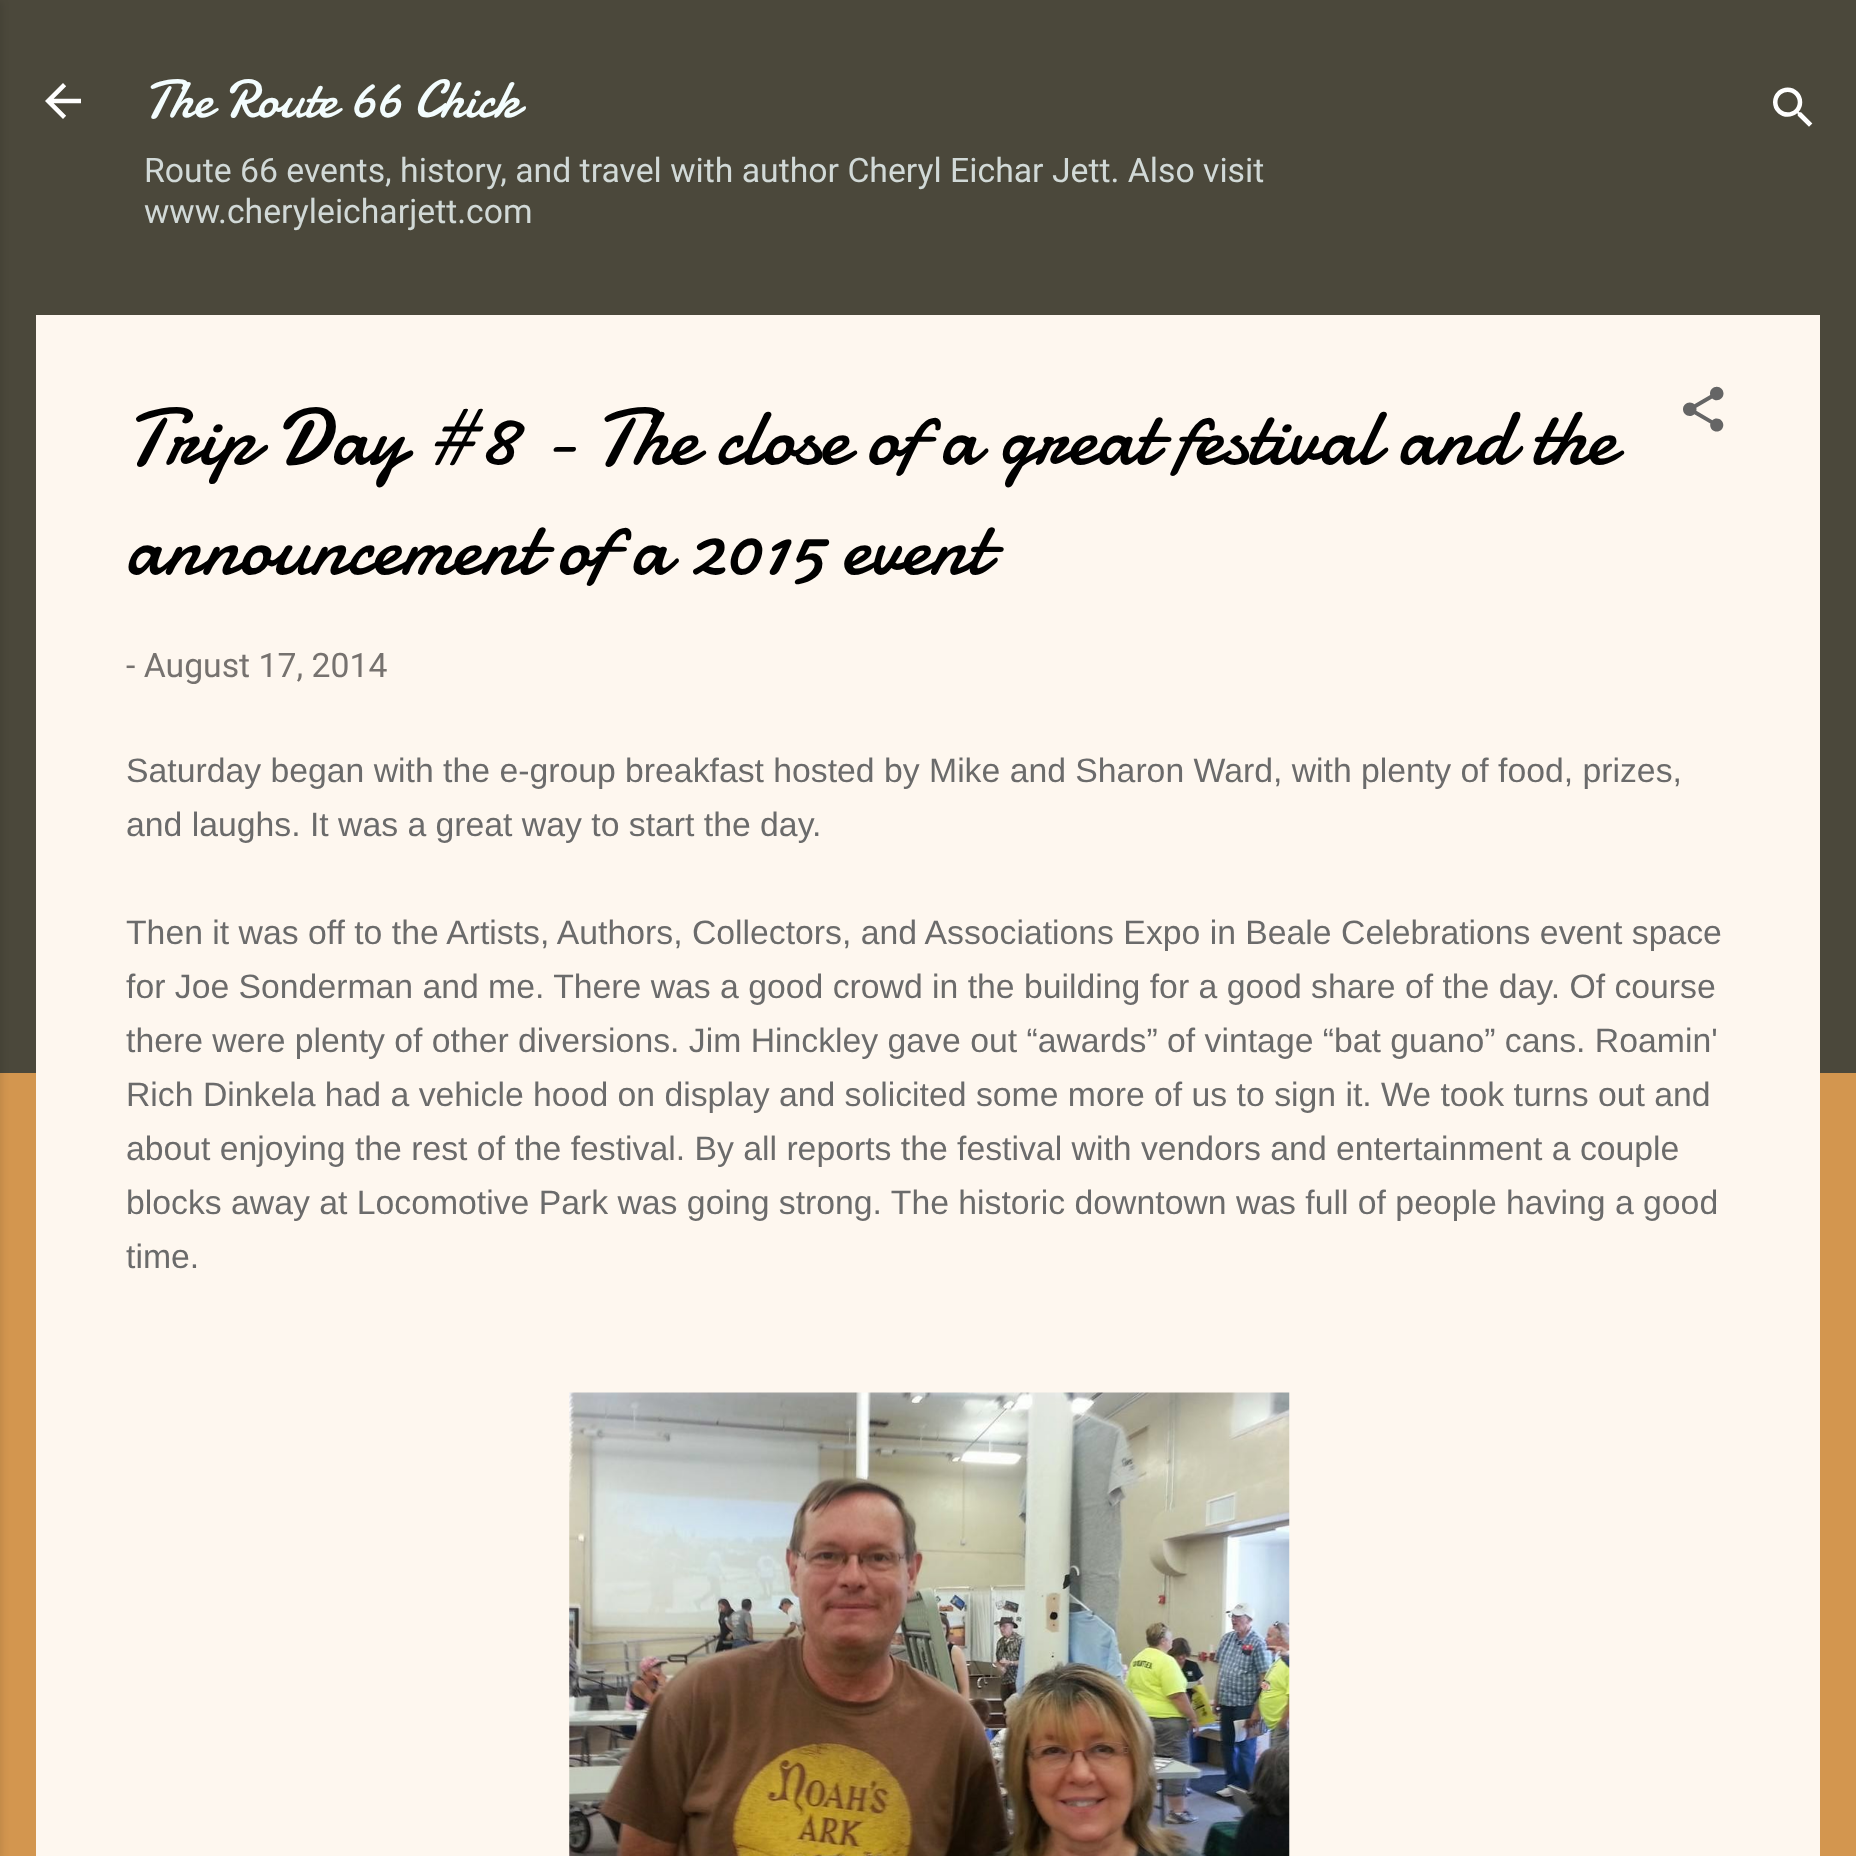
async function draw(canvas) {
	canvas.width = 1856;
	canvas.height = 1856;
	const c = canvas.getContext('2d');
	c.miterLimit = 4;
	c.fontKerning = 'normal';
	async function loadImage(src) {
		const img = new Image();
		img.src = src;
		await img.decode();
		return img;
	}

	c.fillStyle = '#d3964f';
	c.fillRect(0, 0, 1856, 1856);
	c.fillStyle = '#4b483b';
	c.fillRect(0, 0, 1856, 1073);
	c.fillStyle = '#0000001a';
	c.filter = 'blur(3.5px)';
	c.beginPath();
	c.rect(-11, 2, 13, 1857);
	c.fill();
	c.filter = 'none';
	c.drawImage(await loadImage('img1.png'), 45, 83, 36, 36);
	c.font = '54px Damion';
	c.fillStyle = '#f3fdfe';
	c.fillText('The Route 66 Chick', 144, 117);
	c.font = '33.75px Roboto';
	c.fillStyle = '#d1d9d7';
	c.fillText('Route 66 events, history, and travel with author Cheryl Eichar Jett. Also visit', 144, 182);
	c.fillText('www.cheryleicharjett.com', 144, 223);
	c.drawImage(await loadImage('img2.png'), 1773, 87, 40, 40);
	c.fillStyle = '#fef7ef';
	c.fillRect(36, 315, 1784, 1541);
	c.font = '81px Damion';
	c.fillStyle = '#000';
	c.fillText('Trip Day #8 - The close of a great festival and the', 126, 464);
	c.fillText('announcement of a 2015 event', 126, 574);
	c.drawImage(await loadImage('img3.png'), 1683, 386, 41, 46);
	c.font = '33.75px Roboto';
	c.fillStyle = '#76726f';
	c.fillText('- August 17, 2014', 126, 677);
	c.font = '33.75px Liberation Sans';
	c.fillStyle = '#6b6b6b';
	for (const [text, x, y] of [
		['Saturday began with the e-group breakfast hosted by Mike and Sharon Ward, with plenty of food, prizes,', 126, 782],
		['and laughs. It was a great way to start the day.', 126, 836],
		['Then it was off to the Artists, Authors, Collectors, and Associations Expo in Beale Celebrations event space', 126, 944],
		['for Joe Sonderman and me. There was a good crowd in the building for a good share of the day. Of course', 126, 998],
		['there were plenty of other diversions. Jim Hinckley gave out “awards” of vintage “bat guano” cans. Roamin\'', 126, 1052],
		['Rich Dinkela had a vehicle hood on display and solicited some more of us to sign it. We took turns out and', 126, 1106],
		['about enjoying the rest of the festival. By all reports the festival with vendors and entertainment a couple', 126, 1160],
		['blocks away at Locomotive Park was going strong. The historic downtown was full of people having a good', 126, 1214],
		['time.', 126, 1268],
	]) {
		c.fillText(text, x, y);
	}
	c.drawImage(await loadImage('img4.png'), 569, 1392, 721, 464);
}

draw(document.querySelector('canvas'));
